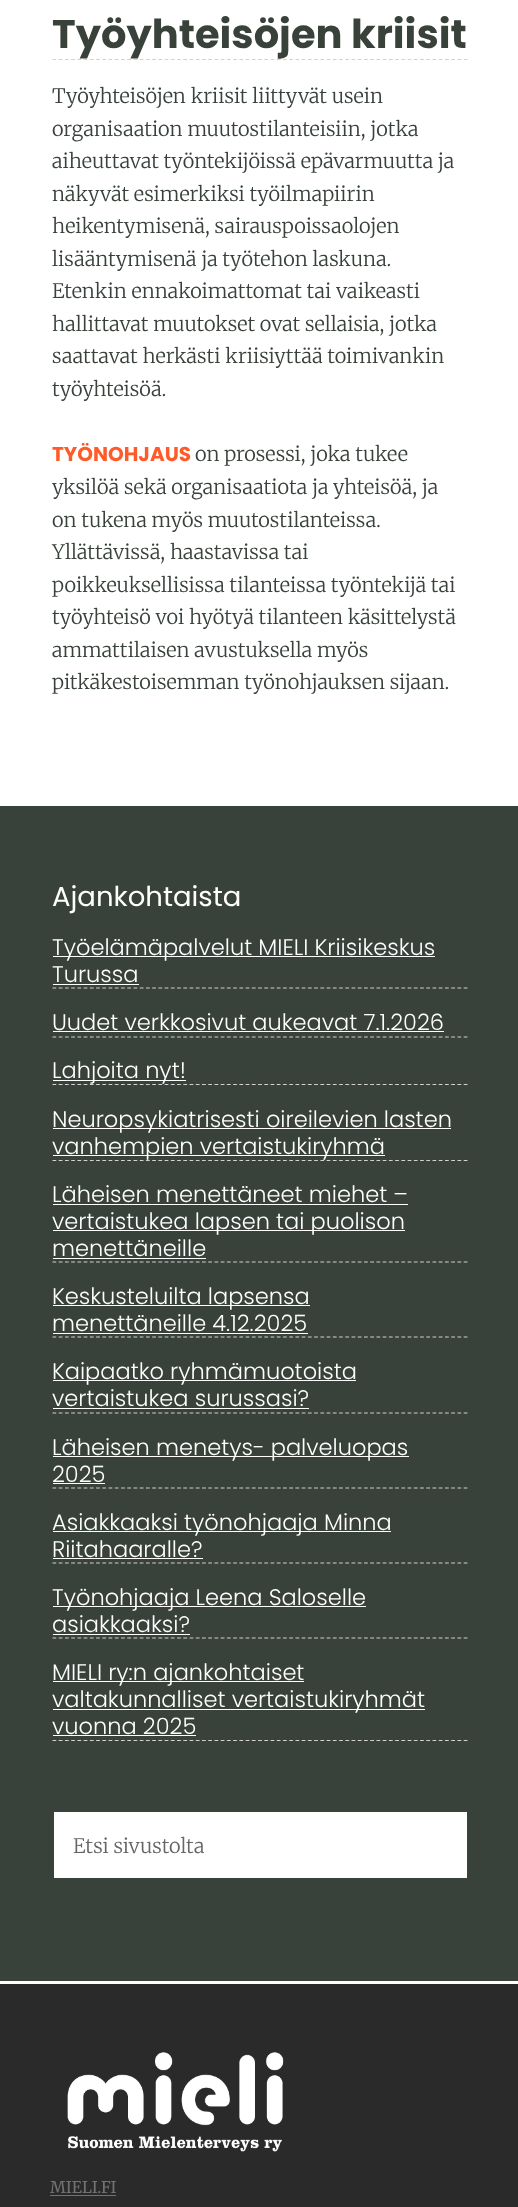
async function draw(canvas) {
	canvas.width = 518;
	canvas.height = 2207;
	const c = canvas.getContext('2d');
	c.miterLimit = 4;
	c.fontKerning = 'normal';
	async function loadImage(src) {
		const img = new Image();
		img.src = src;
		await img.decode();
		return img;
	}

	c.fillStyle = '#38413a';
	c.fillRect(0, 0, 518, 2207);
	c.fillStyle = '#fff';
	c.fillRect(0, 0, 518, 806);
	c.beginPath();
	c.moveTo(52.5, 59.5);
	c.lineTo(467.5, 59.5);
	c.strokeStyle = '#d2d2d2';
	c.lineWidth = 1.2;
	c.setLineDash([3.75, 2.48]);
	c.stroke();
	c.font = 'bold 40px Poppins';
	c.fillStyle = '#38413a';
	c.fillText('Työyhteisöjen kriisit', 52, 48);
	c.font = '300 20px Merriweather';
	for (const [text, x, y] of [
		['Työyhteisöjen kriisit liittyvät usein', 52, 103],
		['organisaation muutostilanteisiin, jotka', 52, 136],
		['aiheuttavat työntekijöissä epävarmuutta ja', 52, 168],
		['näkyvät esimerkiksi työilmapiirin', 52, 201],
		['heikentymisenä, sairauspoissaolojen', 52, 233],
		['lisääntymisenä ja työtehon laskuna.', 52, 266],
		['Etenkin ennakoimattomat tai vaikeasti', 52, 298],
		['hallittavat muutokset ovat sellaisia, jotka', 52, 331],
		['saattavat herkästi kriisiyttää toimivankin', 52, 363],
		['työyhteisöä.', 52, 396],
	]) {
		c.fillText(text, x, y);
	}
	c.font = 'bold 20px Poppins';
	c.fillStyle = '#ff5a28';
	c.fillText('TYÖNOHJAUS', 52, 461);
	c.font = '300 20px Merriweather';
	c.fillStyle = '#38413a';
	for (const [text, x, y] of [
		['on prosessi, joka tukee', 195, 461],
		['yksilöä sekä organisaatiota ja yhteisöä, ja', 52, 494],
		['on tukena myös muutostilanteissa.', 52, 527],
		['Yllättävissä, haastavissa tai', 52, 559],
		['poikkeuksellisissa tilanteissa työntekijä tai', 52, 592],
		['työyhteisö voi hyötyä tilanteen käsittelystä', 52, 624],
		['ammattilaisen avustuksella myös', 52, 657],
		['pitkäkestoisemman työnohjauksen sijaan.', 52, 689],
	]) {
		c.fillText(text, x, y);
	}
	c.font = '27.5px Poppins';
	c.fillStyle = '#fff';
	c.fillText('Ajankohtaista', 52, 906);
	c.beginPath();
	c.moveTo(52.5, 988);
	c.lineTo(467.5, 988);
	c.stroke();
	c.fillRect(53, 956, 382, 1);
	c.font = '300 22.5px Poppins';
	c.fillText('Työelämäpalvelut MIELI Kriisikeskus', 52, 955);
	c.fillText('Turussa', 52, 982);
	c.fillRect(53, 984, 86, 1);
	c.beginPath();
	c.moveTo(52.5, 1037);
	c.lineTo(467.5, 1037);
	c.stroke();
	c.fillText('Uudet verkkosivut aukeavat 7.1.2026', 52, 1030);
	c.fillRect(53, 1031, 391, 1);
	c.beginPath();
	c.moveTo(52.5, 1084.5);
	c.lineTo(467.5, 1084.5);
	c.stroke();
	c.fillRect(53, 1080, 133, 1);
	c.fillText('Lahjoita nyt!', 52, 1078);
	c.beginPath();
	c.moveTo(52.5, 1160.5);
	c.lineTo(467.5, 1160.5);
	c.stroke();
	c.fillRect(53, 1128, 398, 1);
	c.fillText('Neuropsykiatrisesti oireilevien lasten', 52, 1127);
	c.fillRect(53, 1155, 332, 1);
	c.fillText('vanhempien vertaistukiryhmä', 52, 1154);
	c.beginPath();
	c.moveTo(52.5, 1262);
	c.lineTo(467.5, 1262);
	c.stroke();
	c.fillText('Läheisen menettäneet miehet –', 52, 1202);
	c.fillRect(53, 1204, 355, 1);
	c.fillRect(53, 1230, 352, 1);
	c.fillText('vertaistukea lapsen tai puolison', 52, 1229);
	c.fillText('menettäneille', 52, 1256);
	c.fillRect(53, 1258, 153, 1);
	c.beginPath();
	c.moveTo(52.5, 1337);
	c.lineTo(467.5, 1337);
	c.stroke();
	c.fillRect(53, 1305, 257, 1);
	c.fillText('Keskusteluilta lapsensa', 52, 1304);
	c.fillText('menettäneille 4.12.2025', 52, 1331);
	c.fillRect(53, 1333, 255, 1);
	c.beginPath();
	c.moveTo(52.5, 1413);
	c.lineTo(467.5, 1413);
	c.stroke();
	c.fillRect(53, 1380, 303, 1);
	c.fillText('Kaipaatko ryhmämuotoista', 52, 1379);
	c.fillText('vertaistukea surussasi?', 52, 1406);
	c.fillRect(53, 1408, 256, 1);
	c.beginPath();
	c.moveTo(52.5, 1488);
	c.lineTo(467.5, 1488);
	c.stroke();
	c.fillRect(53, 1456, 356, 1);
	c.fillText('Läheisen menetys- palveluopas', 52, 1455);
	c.fillText('2025', 52, 1482);
	c.fillRect(53, 1483, 52, 1);
	c.beginPath();
	c.moveTo(52.5, 1563);
	c.lineTo(467.5, 1563);
	c.stroke();
	c.fillRect(53, 1531, 338, 1);
	c.fillText('Asiakkaaksi työnohjaaja Minna', 52, 1530);
	c.fillText('Riitahaaralle?', 52, 1557);
	c.fillRect(53, 1558, 150, 1);
	c.beginPath();
	c.moveTo(52.5, 1638);
	c.lineTo(467.5, 1638);
	c.stroke();
	c.fillRect(53, 1606, 313, 1);
	c.fillText('Työnohjaaja Leena Saloselle', 52, 1605);
	c.fillText('asiakkaaksi?', 52, 1632);
	c.fillRect(53, 1634, 137, 1);
	c.beginPath();
	c.moveTo(52.5, 1740.5);
	c.lineTo(467.5, 1740.5);
	c.stroke();
	c.fillRect(53, 1681, 251, 1);
	c.fillText('MIELI ry:n ajankohtaiset', 52, 1680);
	c.fillRect(53, 1709, 372, 1);
	c.fillText('valtakunnalliset vertaistukiryhmät', 52, 1707);
	c.fillText('vuonna 2025', 52, 1734);
	c.fillRect(53, 1735, 143, 1);
	c.fillRect(54, 1812, 413, 66);
	c.font = '300 20px Merriweather';
	c.fillStyle = '#666';
	c.fillText('Etsi sivustolta', 73, 1853);
	c.fillStyle = '#2a2a2a';
	c.fillRect(0, 1984, 518, 223);
	c.fillStyle = '#fff';
	c.fillRect(0, 1981, 518, 3);
	c.drawImage(await loadImage('img1.png'), 67, 2052, 217, 100);
	c.font = '16px Merriweather';
	c.fillStyle = '#727272';
	c.fillText('MIELI.FI', 50, 2193);
	c.fillRect(50, 2195, 66, 1);
}

draw(document.querySelector('canvas'));
